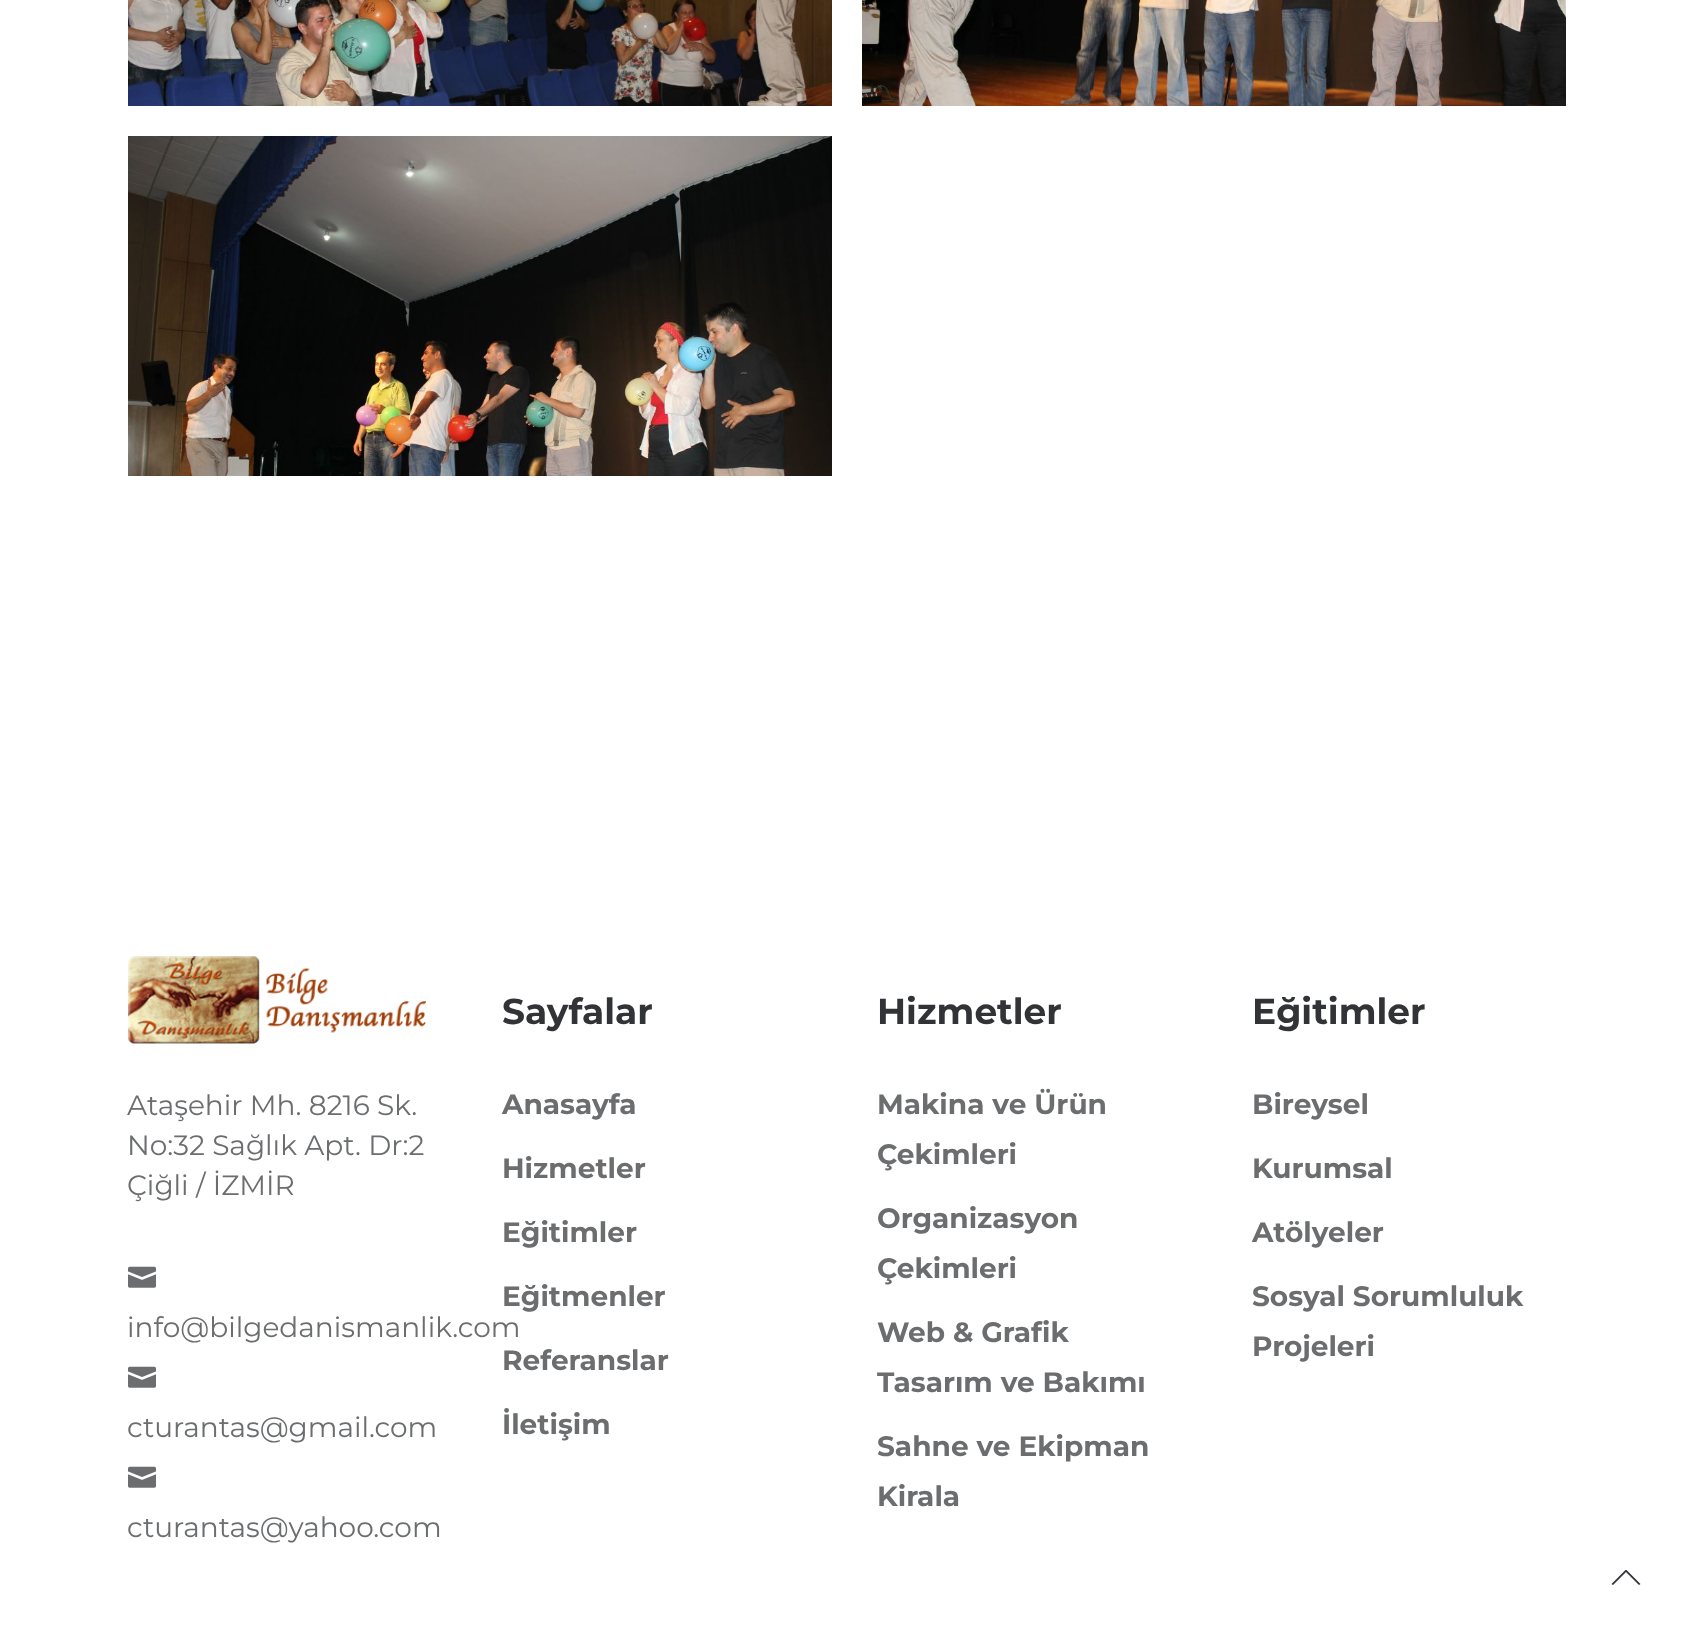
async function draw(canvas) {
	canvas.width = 1694;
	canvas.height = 1646;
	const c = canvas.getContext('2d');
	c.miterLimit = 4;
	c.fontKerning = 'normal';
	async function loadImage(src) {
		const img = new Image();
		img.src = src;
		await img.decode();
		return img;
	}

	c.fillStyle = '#fff';
	c.fillRect(0, 0, 1694, 1646);
	c.drawImage(await loadImage('img1.png'), 128, 0, 704, 106);
	c.drawImage(await loadImage('img2.png'), 862, 0, 704, 106);
	c.drawImage(await loadImage('img3.png'), 128, 136, 704, 340);
	c.drawImage(await loadImage('img4.png'), 128, 956, 298, 88);
	c.font = '28px Montserrat';
	c.fillStyle = '#6b6d6f';
	for (const [text, x, y] of [
		['Ataşehir Mh. 8216 Sk.', 127, 1115],
		['No:32 Sağlık Apt. Dr:2', 127, 1155],
		['Çiğli / İZMİR', 127, 1195],
	]) {
		c.fillText(text, x, y);
	}
	c.drawImage(await loadImage('img5.png'), 128, 1266, 28, 22);
	c.fillText('info@bilgedanismanlik.com', 127, 1337);
	c.drawImage(await loadImage('img5.png'), 128, 1366, 28, 22);
	c.fillText('cturantas@gmail.com', 127, 1437);
	c.drawImage(await loadImage('img5.png'), 128, 1466, 28, 22);
	c.fillText('cturantas@yahoo.com', 127, 1537);
	c.font = 'bold 36px Montserrat';
	c.fillStyle = '#323336';
	c.fillText('Sayfalar', 502, 1024);
	c.font = 'bold 28px Montserrat';
	c.fillStyle = '#6b6d6f';
	for (const [text, x, y] of [
		['Anasayfa', 502, 1114],
		['Hizmetler', 502, 1178],
		['Eğitimler', 502, 1242],
		['Eğitmenler', 502, 1306],
		['Referanslar', 502, 1370],
		['İletişim', 502, 1434],
	]) {
		c.fillText(text, x, y);
	}
	c.font = 'bold 36px Montserrat';
	c.fillStyle = '#323336';
	c.fillText('Hizmetler', 877, 1024);
	c.font = 'bold 28px Montserrat';
	c.fillStyle = '#6b6d6f';
	for (const [text, x, y] of [
		['Makina ve Ürün', 877, 1114],
		['Çekimleri', 877, 1164],
		['Organizasyon', 877, 1228],
		['Çekimleri', 877, 1278],
		['Web & Grafik', 877, 1342],
		['Tasarım ve Bakımı', 877, 1392],
		['Sahne ve Ekipman', 877, 1456],
		['Kirala', 877, 1506],
	]) {
		c.fillText(text, x, y);
	}
	c.font = 'bold 36px Montserrat';
	c.fillStyle = '#323336';
	c.fillText('Eğitimler', 1252, 1024);
	c.font = 'bold 28px Montserrat';
	c.fillStyle = '#6b6d6f';
	for (const [text, x, y] of [
		['Bireysel', 1252, 1114],
		['Kurumsal', 1252, 1178],
		['Atölyeler', 1252, 1242],
		['Sosyal Sorumluluk', 1252, 1306],
		['Projeleri', 1252, 1356],
	]) {
		c.fillText(text, x, y);
	}
	c.fillStyle = '#323336';
	c.beginPath();
	c.moveTo(1640.5, 1584);
	c.lineTo(1639, 1585);
	c.lineTo(1626, 1572);
	c.lineTo(1613, 1585);
	c.lineTo(1611.5, 1584);
	c.lineTo(1625.5, 1570);
	c.lineTo(1626.5, 1570);
	c.closePath();
	c.fill();
}

draw(document.querySelector('canvas'));
